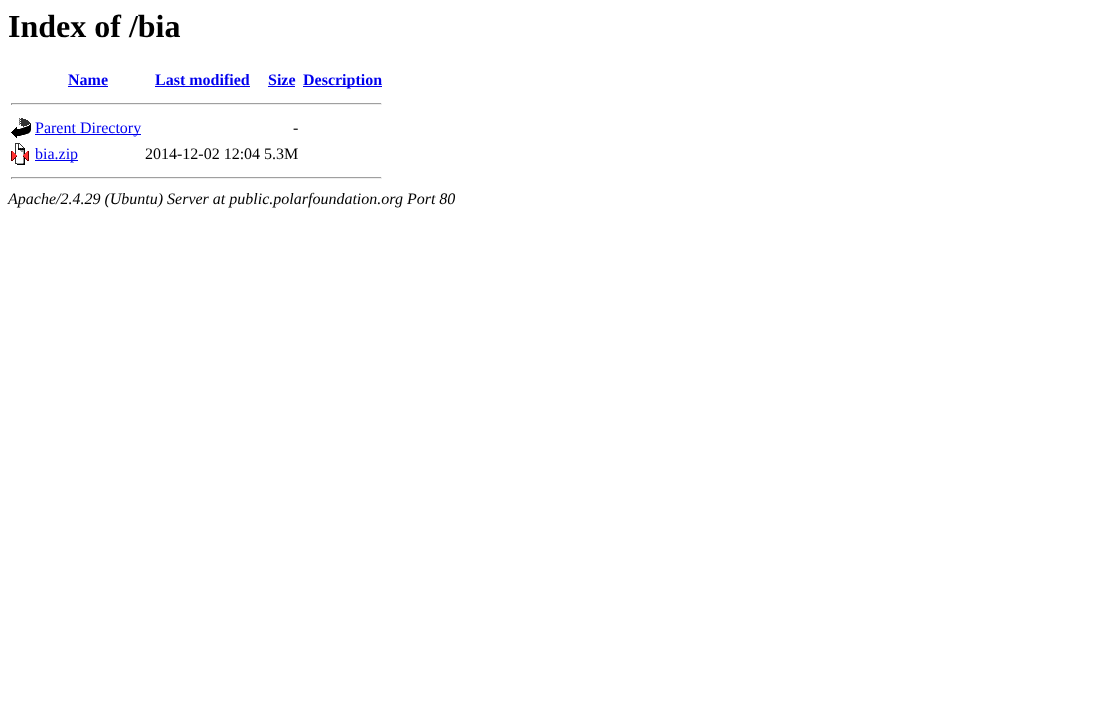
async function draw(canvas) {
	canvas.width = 1105;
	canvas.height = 727;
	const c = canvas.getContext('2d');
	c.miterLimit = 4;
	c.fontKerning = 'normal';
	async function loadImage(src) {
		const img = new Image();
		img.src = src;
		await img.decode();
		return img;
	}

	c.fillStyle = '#fff';
	c.fillRect(0, 0, 1105, 727);
	c.font = 'bold 32px Liberation Serif';
	c.fillStyle = '#000';
	c.fillText('Index of /bia', 8, 37);
	c.font = 'bold 16px Liberation Serif';
	c.fillStyle = '#00e';
	c.fillText('Name', 68, 85);
	c.fillRect(68, 86, 40, 1);
	c.fillText('Last modified', 155, 85);
	c.fillRect(155, 86, 95, 1);
	c.fillText('Size', 268, 85);
	c.fillRect(268, 86, 27, 1);
	c.fillRect(303, 86, 79, 1);
	c.fillText('Description', 303, 85);
	for (const [x, y, w, h, color] of [
		[11, 103, 371, 1, '#9f9f9f'],
		[381, 103, 1, 2, '#eee'],
		[11, 104, 371, 1, '#eee'],
		[11, 103, 1, 2, '#9f9f9f'],
	]) {
		c.fillStyle = color;
		c.fillRect(x, y, w, h);
	}
	c.drawImage(await loadImage('img1.png'), 11, 118, 20, 20);
	c.fillStyle = '#00e';
	c.fillRect(35, 134, 106, 1);
	c.font = '16px Liberation Serif';
	c.fillText('Parent Directory', 35, 133);
	c.fillStyle = '#000';
	c.fillText('-', 293, 133);
	c.drawImage(await loadImage('img2.png'), 11, 143, 18, 22);
	c.fillStyle = '#00e';
	c.fillRect(35, 160, 43, 1);
	c.fillText('bia.zip', 35, 159);
	c.fillStyle = '#000';
	c.fillText('2014-12-02 12:04 5.3M', 145, 159);
	for (const [x, y, w, h, color] of [
		[11, 177, 371, 1, '#9f9f9f'],
		[381, 177, 1, 2, '#eee'],
		[11, 178, 371, 1, '#eee'],
		[11, 177, 1, 2, '#9f9f9f'],
	]) {
		c.fillStyle = color;
		c.fillRect(x, y, w, h);
	}
	c.font = 'italic 16px Liberation Serif';
	c.fillStyle = '#000';
	c.fillText('Apache/2.4.29 (Ubuntu) Server at public.polarfoundation.org Port 80', 8, 204);
}

draw(document.querySelector('canvas'));
